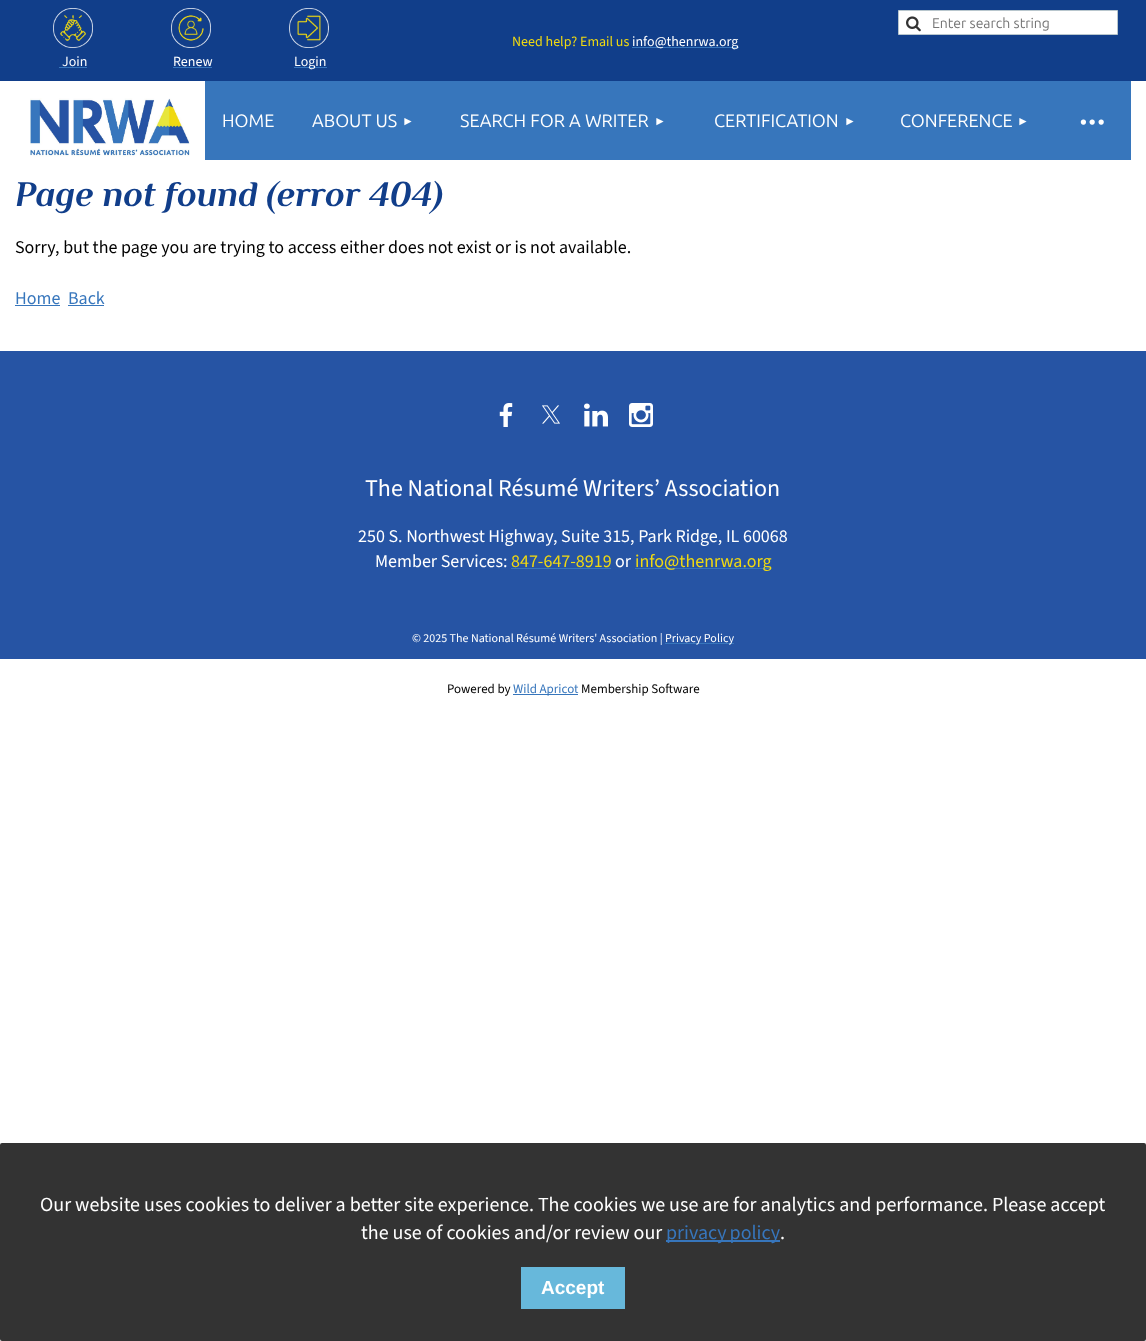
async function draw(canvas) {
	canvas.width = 1146;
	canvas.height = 1341;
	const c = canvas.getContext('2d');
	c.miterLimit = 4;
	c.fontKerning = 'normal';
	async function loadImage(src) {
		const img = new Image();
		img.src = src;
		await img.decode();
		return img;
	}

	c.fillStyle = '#fff';
	c.fillRect(0, 0, 1146, 1341);
	c.fillStyle = '#113e8a';
	c.fillRect(0, 0, 1146, 81);
	c.fillStyle = '#fff';
	c.beginPath();
	c.rect(898.5, 10.5, 219, 24);
	c.fill();
	c.strokeStyle = '#b8c6cd';
	c.stroke();
	c.drawImage(await loadImage('img1.png'), 906, 16, 15, 16);
	c.font = '14px Ubuntu';
	c.fillStyle = '#757575';
	c.fillText('Enter search string', 932, 28);
	c.font = '14px "Source Sans 3"';
	c.fillStyle = '#f0d911';
	c.fillText('Need help? Email us', 512, 46);
	c.fillStyle = '#3776bc';
	c.fillRect(632, 47, 107, 1);
	c.fillStyle = '#fff';
	c.fillText('info@thenrwa.org', 632, 46);
	c.drawImage(await loadImage('img2.png'), 53, 8, 40, 40);
	c.fillText('Join', 62, 66);
	c.fillStyle = '#3776bc';
	c.fillRect(59, 67, 28, 1);
	c.drawImage(await loadImage('img3.png'), 171, 8, 40, 40);
	c.fillStyle = '#fff';
	c.fillText('Renew', 173, 66);
	c.fillStyle = '#3776bc';
	c.fillRect(173, 67, 39, 1);
	c.drawImage(await loadImage('img4.png'), 289, 8, 40, 40);
	c.fillRect(294, 67, 33, 1);
	c.fillStyle = '#fff';
	c.fillText('Login', 294, 66);
	c.drawImage(await loadImage('img5.png'), 30, 98, 160, 59);
	c.fillStyle = '#3776bc';
	c.fillRect(205, 81, 926, 79);
	c.font = '18px Ubuntu';
	c.fillStyle = '#fff';
	c.fillText('HOME', 222, 127);
	c.fillText('ABOUT US', 312, 127);
	c.font = '12px Liberation Sans';
	c.fillText('►', 402, 125);
	c.font = '18px Ubuntu';
	c.fillText('SEARCH FOR A WRITER', 460, 127);
	c.font = '12px Liberation Sans';
	c.fillText('►', 654, 125);
	c.font = '18px Ubuntu';
	c.fillText('CERTIFICATION', 714, 127);
	c.font = '12px Liberation Sans';
	c.fillText('►', 844, 125);
	c.font = '18px Ubuntu';
	c.fillText('CONFERENCE', 900, 127);
	c.font = '12px Liberation Sans';
	c.fillText('►', 1017, 125);
	c.letterSpacing = '-2px';
	c.font = '44px Ubuntu';
	c.fillText('···', 1078, 135);
	c.letterSpacing = '0px';
	c.font = 'italic bold 36px Philosopher';
	c.fillStyle = '#113e8a';
	c.fillText('Page not found (error 404)', 15, 206);
	c.font = '18px "Source Sans 3"';
	c.fillStyle = '#000';
	c.fillText('Sorry, but the page you are trying to access either does not exist or is not available.', 15, 253);
	c.fillStyle = '#3776bc';
	c.fillText('Home', 15, 304);
	c.fillRect(15, 305, 45, 1);
	c.fillText('Back', 68, 304);
	c.fillRect(68, 305, 36, 1);
	c.fillStyle = '#2654a4';
	c.fillRect(0, 351, 1146, 308);
	c.drawImage(await loadImage('img6.png'), 499, 403, 14, 24);
	c.drawImage(await loadImage('img7.png'), 542, 405, 18, 19);
	c.drawImage(await loadImage('img8.png'), 584, 403, 24, 24);
	c.drawImage(await loadImage('img9.png'), 629, 403, 24, 24);
	c.font = '24px "Source Sans 3"';
	c.fillStyle = '#fff';
	c.fillText('The National Résumé Writers’ Association', 365, 496);
	c.font = '18px "Source Sans 3"';
	c.fillText('250 S. Northwest Highway, Suite 315, Park Ridge, IL 60068', 358, 542);
	c.fillText('Member Services:', 375, 567);
	c.fillStyle = '#f0d911';
	c.fillText('847-647-8919', 511, 567);
	c.fillStyle = '#3776bc';
	c.fillRect(511, 568, 100, 1);
	c.fillStyle = '#fff';
	c.fillText('or', 615, 567);
	c.fillStyle = '#3776bc';
	c.fillRect(635, 568, 136, 1);
	c.fillStyle = '#f0d911';
	c.fillText('info@thenrwa.org', 635, 567);
	c.font = '12px "Source Sans 3"';
	c.fillStyle = '#fff';
	c.fillText('© 2025 The National Résumé Writers\' Association |', 412, 642);
	c.fillStyle = '#3776bc';
	c.fillRect(665, 643, 69, 1);
	c.fillStyle = '#fff';
	c.fillText('Privacy Policy', 665, 642);
	c.font = '13px "Source Sans 3"';
	c.fillStyle = '#000';
	c.fillText('Powered by', 447, 693);
	c.fillStyle = '#3776bc';
	c.fillRect(513, 694, 65, 1);
	c.fillText('Wild Apricot', 513, 693);
	c.fillStyle = '#000';
	c.fillText('Membership Software', 581, 693);
	c.fillStyle = '#333';
	c.beginPath();
	c.roundRect(0, 1143, 1146, 198, 2);
	c.fill();
	c.font = '20px "Source Sans 3"';
	c.fillStyle = '#fff';
	c.fillText('Our website uses cookies to deliver a better site experience. The cookies we use are for analytics and performance. Please accept', 40, 1211);
	c.fillText('the use of cookies and/or review our', 361, 1239);
	c.fillStyle = '#3776bc';
	c.fillRect(666, 1240, 114, 2);
	c.wordSpacing = '-1px';
	c.fillText('privacy policy', 666, 1239);
	c.wordSpacing = '0px';
	c.fillStyle = '#fff';
	c.fillText('.', 780, 1239);
	c.fillStyle = '#67b8db';
	c.fillRect(521, 1267, 104, 42);
	c.font = 'bold 19px Liberation Sans';
	c.fillStyle = '#fff';
	c.fillText('Accept', 541, 1294);
}

draw(document.querySelector('canvas'));
